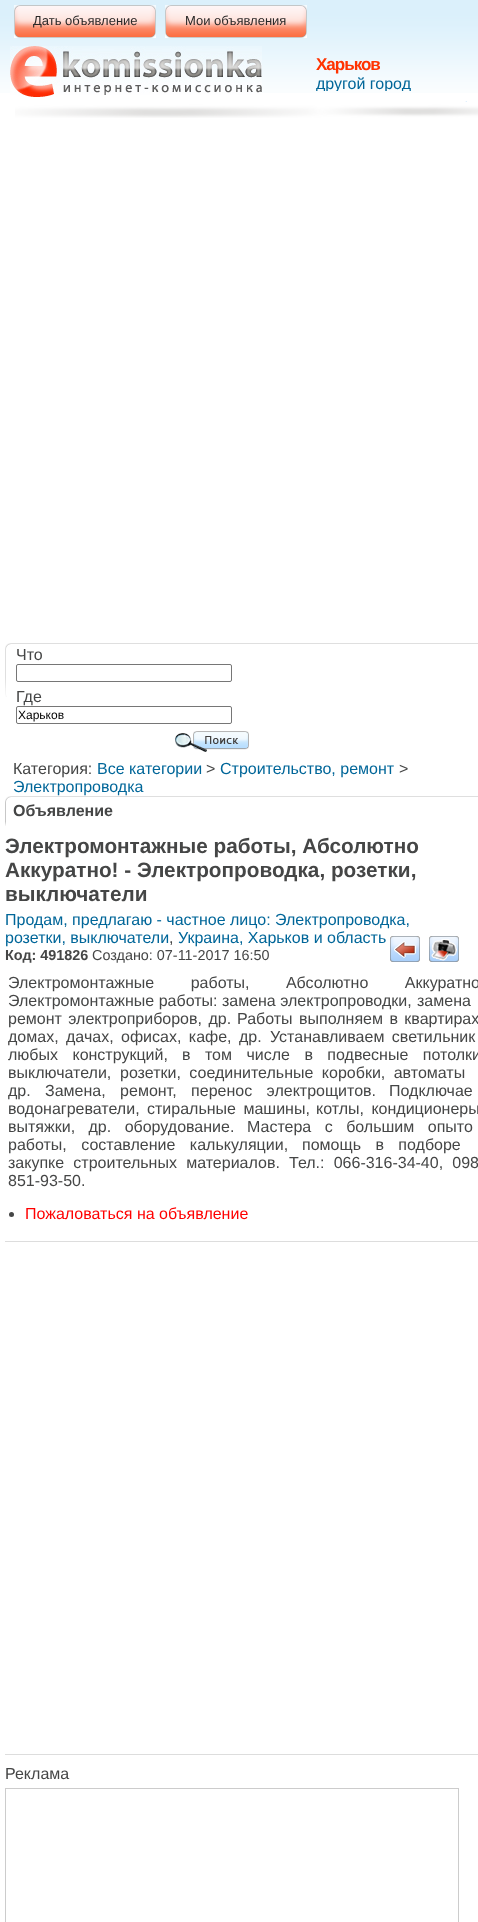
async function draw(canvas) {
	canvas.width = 478;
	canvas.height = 1922;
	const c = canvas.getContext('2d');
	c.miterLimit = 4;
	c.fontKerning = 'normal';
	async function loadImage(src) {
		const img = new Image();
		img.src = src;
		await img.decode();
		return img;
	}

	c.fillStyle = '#fff';
	c.fillRect(0, 0, 478, 1922);
	c.drawImage(await loadImage('img1.png'), 0, 0, 478, 93);
	c.drawImage(await loadImage('img2.png'), 15, 101, 463, 17);
	c.drawImage(await loadImage('img3.png'), 14, 5, 142, 33);
	c.font = '13px Liberation Sans';
	c.fillStyle = '#2a2828';
	c.fillText('Дать объявление', 33, 25);
	c.drawImage(await loadImage('img3.png'), 165, 5, 142, 33);
	c.fillText('Мои объявления', 185, 25);
	c.drawImage(await loadImage('img4.png'), 10, 46, 252, 51);
	c.letterSpacing = '-1px';
	c.font = 'bold 17px Liberation Sans';
	c.fillStyle = '#f30';
	c.fillText('Харьков', 316, 70);
	c.save();
	c.beginPath();
	c.rect(316, 0, 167, 91);
	c.clip();
	c.letterSpacing = '0px';
	c.font = '16px Liberation Sans';
	c.fillStyle = '#069';
	c.fillText('другой город', 316, 89);
	c.restore();
	c.drawImage(await loadImage('img5.png'), 5, 643, 473, 54);
	c.letterSpacing = '0px';
	c.font = '16px Liberation Sans';
	c.fillStyle = '#454646';
	c.fillText('Что', 16, 660);
	c.beginPath();
	c.roundRect(16.5, 664.5, 215, 17, 1.5);
	c.strokeStyle = '#767676';
	c.stroke();
	c.fillText('Где', 16, 702);
	c.beginPath();
	c.roundRect(16.5, 706.5, 215, 17, 1.5);
	c.stroke();
	c.font = '12px Liberation Sans';
	c.fillStyle = '#000';
	c.fillText('Харьков', 18, 719);
	c.drawImage(await loadImage('img6.png'), 175, 731, 74, 21);
	c.font = '16px Liberation Sans';
	c.fillStyle = '#454646';
	c.fillText('Категория:', 13, 774);
	c.fillStyle = '#069';
	c.fillText('Все категории', 97, 774);
	c.fillStyle = '#454646';
	c.fillText('>', 206, 774);
	c.fillStyle = '#069';
	c.fillText('Строительство, ремонт', 220, 774);
	c.fillStyle = '#454646';
	c.fillText('>', 399, 774);
	c.fillStyle = '#069';
	c.fillText('Электропроводка', 13, 792);
	c.drawImage(await loadImage('img7.png'), 5, 796, 473, 30);
	c.font = 'bold 16px Liberation Sans';
	c.fillStyle = '#454646';
	c.fillText('Объявление', 13, 816);
	c.font = 'bold 20.75px Liberation Sans';
	for (const [text, x, y] of [
		['Электромонтажные работы, Абсолютно', 5, 853],
		['Аккуратно! - Электропроводка, розетки,', 5, 877],
		['выключатели', 5, 901],
	]) {
		c.fillText(text, x, y);
	}
	c.font = '16px Liberation Sans';
	c.fillStyle = '#069';
	c.fillText('Продам, предлагаю - частное лицо: Электропроводка,', 5, 925);
	c.fillText('розетки, выключатели', 5, 943);
	c.fillStyle = '#454646';
	c.fillText(',', 169, 943);
	c.fillStyle = '#069';
	c.fillText('Украина, Харьков и область', 178, 943);
	c.drawImage(await loadImage('img8.png'), 390, 936, 30, 26);
	c.drawImage(await loadImage('img9.png'), 429, 936, 30, 26);
	c.font = 'bold 14.4px Liberation Sans';
	c.fillStyle = '#454646';
	c.fillText('Код: 491826', 5, 960);
	c.font = '14.4px Liberation Sans';
	c.fillText('Создано: 07-11-2017 16:50', 92, 960);
	c.fillStyle = '#ddd';
	c.fillRect(5, 1241, 473, 1);
	c.wordSpacing = '32px';
	c.font = '16px Liberation Sans';
	c.fillStyle = '#454646';
	c.fillText('Электромонтажные работы, Абсолютно Аккуратно', 8, 988);
	c.wordSpacing = '0px';
	c.fillText('Электромонтажные работы: замена электропроводки,', 8, 1006);
	c.fillText('замена', 417, 1006);
	c.wordSpacing = '2px';
	c.fillText('ремонт электроприборов, др.', 8, 1024);
	c.fillText('Работы выполняем в квартирах', 237, 1024);
	c.wordSpacing = '3px';
	for (const [text, x, y] of [
		['домах, дачах,', 8, 1042],
		['офисах, кафе, др.', 121, 1042],
		['Устанавливаем светильник', 270, 1042],
	]) {
		c.fillText(text, x, y);
	}
	c.wordSpacing = '10px';
	c.fillText('любых конструкций,', 8, 1060);
	c.fillText('в том числе в подвесные потолки', 182, 1060);
	c.wordSpacing = '0px';
	c.fillText('выключатели,', 8, 1078);
	c.wordSpacing = '4px';
	c.fillText('розетки, соединительные коробки, автоматы', 120, 1078);
	c.wordSpacing = '0px';
	c.fillText('др.', 8, 1096);
	c.wordSpacing = '10px';
	c.fillText('Замена, ремонт, перенос электрощитов.', 45, 1096);
	c.wordSpacing = '0px';
	c.fillText('Подключае', 389, 1096);
	c.wordSpacing = '3px';
	c.fillText('водонагреватели, стиральные машины,', 8, 1114);
	c.fillText('котлы, кондиционеры', 316, 1114);
	c.wordSpacing = '9px';
	c.fillText('вытяжки, др. оборудование.', 8, 1132);
	c.fillText('Мастера с большим опыто', 247, 1132);
	c.wordSpacing = '10px';
	c.fillText('работы, составление калькуляции,', 8, 1150);
	c.fillText('помощь в подборе', 302, 1150);
	c.wordSpacing = '4.75px';
	c.fillText('закупке строительных материалов. Тел.: 066-316-34-40, 098', 8, 1168);
	c.wordSpacing = '0px';
	c.fillText('851-93-50.', 8, 1186);
	c.beginPath();
	c.arc(11.5, 1214.5, 2.5, 0, 2 * Math.PI);
	c.fill();
	c.fillStyle = '#f00';
	c.fillText('Пожаловаться на объявление', 25, 1219);
	c.fillStyle = '#ddd';
	c.fillRect(5, 1754, 473, 1);
	c.fillStyle = '#454646';
	c.fillText('Реклама', 5, 1779);
	c.strokeStyle = '#ccc';
	c.strokeRect(5.5, 1788.5, 453, 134);
}

draw(document.querySelector('canvas'));
